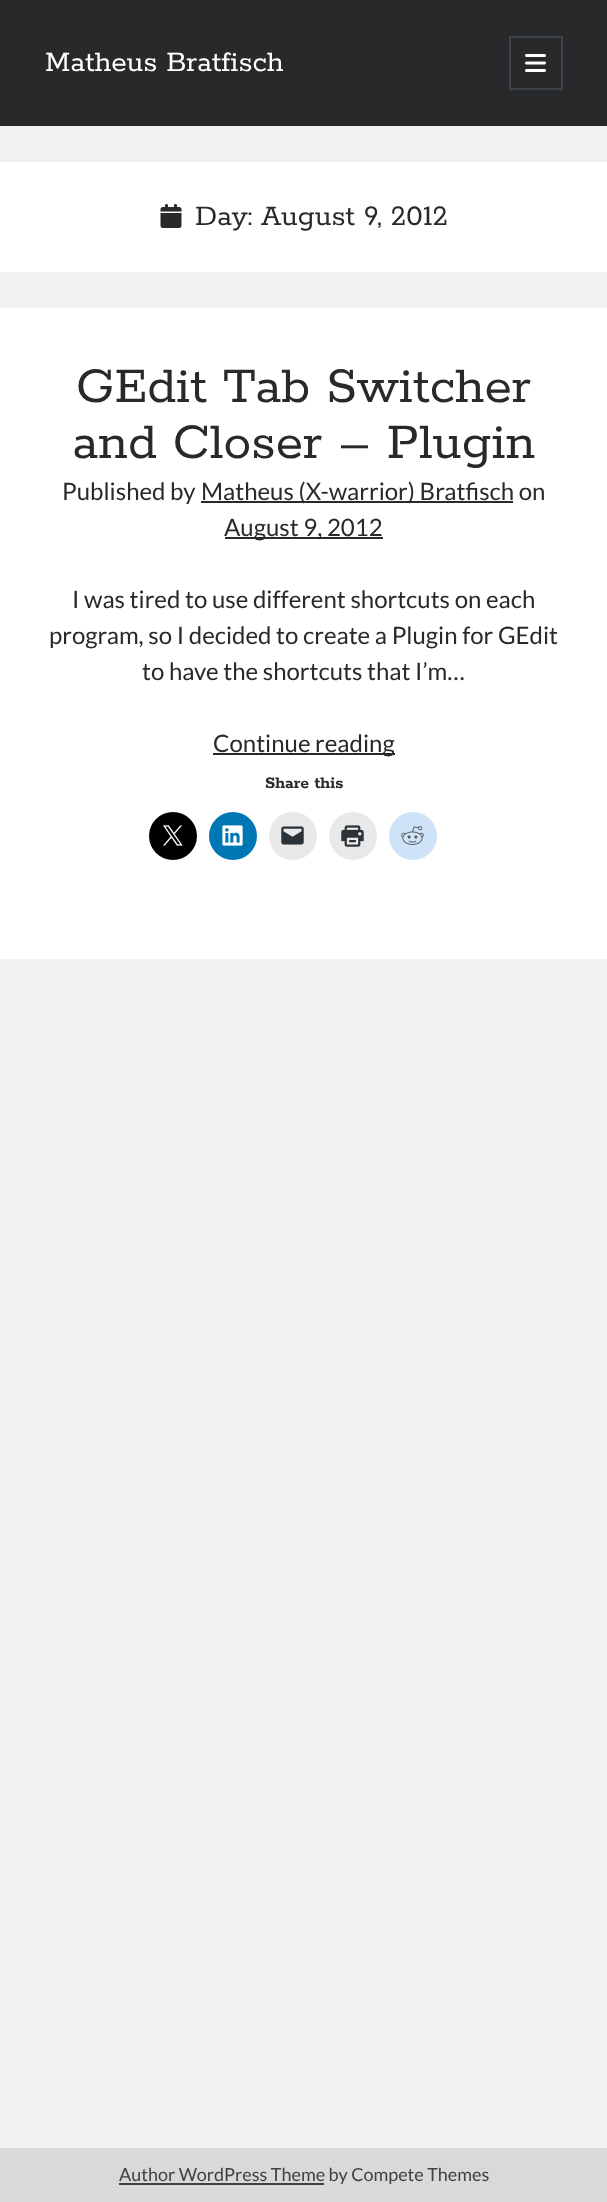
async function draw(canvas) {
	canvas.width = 607;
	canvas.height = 2202;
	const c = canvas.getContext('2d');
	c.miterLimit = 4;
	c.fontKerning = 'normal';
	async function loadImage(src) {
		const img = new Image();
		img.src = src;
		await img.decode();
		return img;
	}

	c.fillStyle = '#27292b';
	c.fillRect(0, 0, 607, 2202);
	c.font = '31.5px Rokkitt';
	c.fillStyle = '#fff';
	c.fillText('Matheus Bratfisch', 45, 71);
	c.strokeStyle = '#3e4145';
	c.lineWidth = 2;
	c.strokeRect(510, 37, 52, 52);
	c.drawImage(await loadImage('img1.png'), 525, 54, 21, 18);
	c.fillStyle = '#f0f1f2';
	c.fillRect(0, 126, 607, 2022);
	c.fillStyle = '#fff';
	c.fillRect(0, 162, 607, 110);
	c.drawImage(await loadImage('img2.png'), 160, 204, 22, 24);
	c.fillStyle = '#27292b';
	c.fillText('Day: August 9, 2012', 195, 225);
	c.fillStyle = '#fff';
	c.fillRect(0, 308, 607, 651);
	c.font = '55.5px Rokkitt';
	c.fillStyle = '#27292b';
	c.fillText('GEdit Tab Switcher', 76, 402);
	c.fillText('and Closer – Plugin', 72, 458);
	c.font = '24px Lato';
	c.fillText('Published by', 62, 500);
	c.fillRect(201, 501, 312, 2);
	c.fillText('Matheus (X-warrior) Bratfisch on', 201, 500);
	c.fillRect(225, 537, 158, 2);
	for (const [text, x, y] of [
		['August 9, 2012', 224, 536],
		['I was tired to use different shortcuts on each', 72, 608],
		['program, so I decided to create a Plugin for GEdit', 49, 644],
		['to have the shortcuts that I’m…', 142, 680],
	]) {
		c.fillText(text, x, y);
	}
	c.fillRect(213, 753, 182, 2);
	c.fillText('Continue reading', 213, 752);
	c.font = 'bold 18px Rokkitt';
	c.fillText('Share this', 265, 788);
	c.fillStyle = '#000';
	c.beginPath();
	c.arc(173, 836, 24, 0, 2 * Math.PI);
	c.fill();
	c.drawImage(await loadImage('img3.png'), 163, 825, 20, 21);
	c.fillStyle = '#0077b5';
	c.beginPath();
	c.arc(233, 836, 24, 0, 2 * Math.PI);
	c.fill();
	c.drawImage(await loadImage('img4.png'), 222, 825, 21, 21);
	c.fillStyle = '#e9e9e9';
	c.beginPath();
	c.arc(293, 836, 24, 0, 2 * Math.PI);
	c.fill();
	c.drawImage(await loadImage('img5.png'), 281, 826, 23, 19);
	c.beginPath();
	c.arc(353, 836, 24, 0, 2 * Math.PI);
	c.fill();
	c.drawImage(await loadImage('img6.png'), 341, 825, 23, 22);
	c.fillStyle = '#cee3f8';
	c.beginPath();
	c.arc(413, 836, 24, 0, 2 * Math.PI);
	c.fill();
	c.drawImage(await loadImage('img7.png'), 401, 826, 23, 19);
	c.fillStyle = '#d9d9d9';
	c.fillRect(0, 2148, 607, 54);
	c.fillStyle = '#3e4145';
	c.fillRect(119, 2183, 205, 2);
	c.font = '18px Lato';
	c.fillText('Author WordPress Theme by Compete Themes', 119, 2181);
}

draw(document.querySelector('canvas'));
